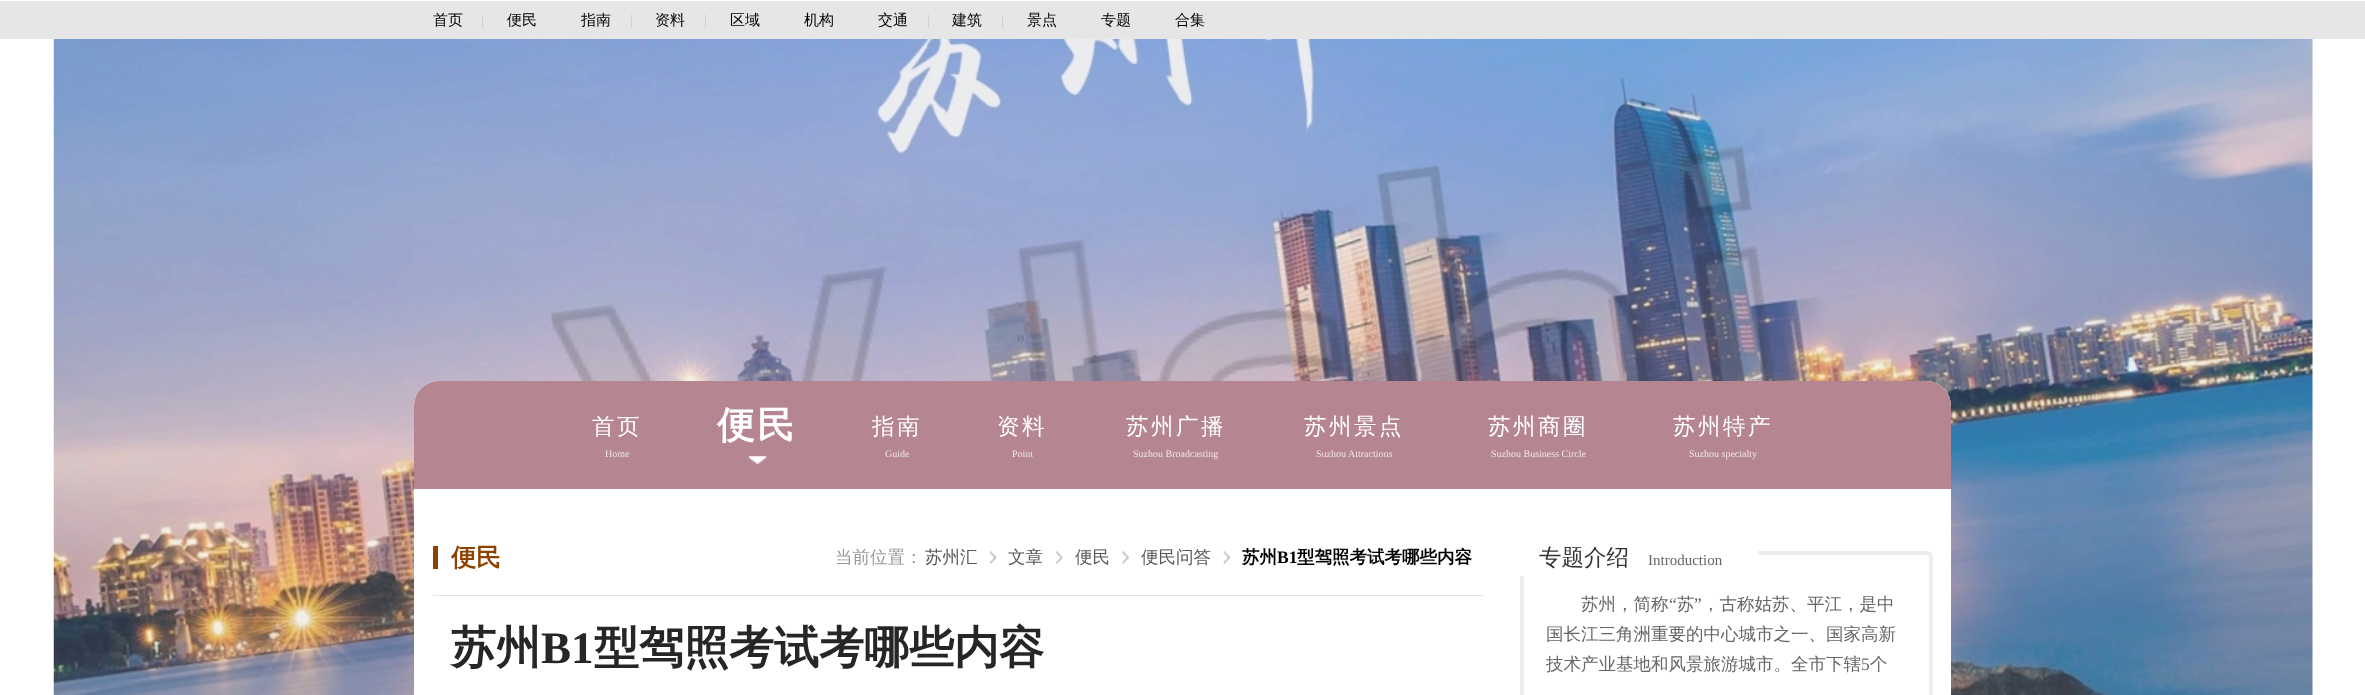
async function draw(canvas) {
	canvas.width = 2365;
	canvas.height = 695;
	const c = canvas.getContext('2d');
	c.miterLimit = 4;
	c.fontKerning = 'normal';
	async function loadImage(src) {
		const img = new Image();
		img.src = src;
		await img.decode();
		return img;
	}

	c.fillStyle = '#fff';
	c.fillRect(0, 0, 2365, 695);
	c.drawImage(await loadImage('img1.png'), 53, 39, 2260, 656);
	c.fillStyle = '#e6e6e6';
	c.fillRect(0, 1, 2365, 38);
	c.font = '500 15px WenQuanYi Zen Hei';
	c.fillStyle = '#000';
	c.fillText('首页', 433, 25);
	c.font = '15px Liberation Serif';
	c.fillStyle = '#ccc';
	c.fillText('|', 481, 25);
	c.font = '500 15px WenQuanYi Zen Hei';
	c.fillStyle = '#000';
	c.fillText('便民', 507, 25);
	c.fillText('指南', 581, 25);
	c.font = '15px Liberation Serif';
	c.fillStyle = '#ccc';
	c.fillText('|', 630, 25);
	c.font = '500 15px WenQuanYi Zen Hei';
	c.fillStyle = '#000';
	c.fillText('资料', 655, 25);
	c.font = '15px Liberation Serif';
	c.fillStyle = '#ccc';
	c.fillText('|', 704, 25);
	c.font = '500 15px WenQuanYi Zen Hei';
	c.fillStyle = '#000';
	for (const [text, x, y] of [
		['区域', 730, 25],
		['机构', 804, 25],
		['交通', 878, 25],
	]) {
		c.fillText(text, x, y);
	}
	c.font = '15px Liberation Serif';
	c.fillStyle = '#ccc';
	c.fillText('|', 927, 25);
	c.font = '500 15px WenQuanYi Zen Hei';
	c.fillStyle = '#000';
	c.fillText('建筑', 952, 25);
	c.font = '15px Liberation Serif';
	c.fillStyle = '#ccc';
	c.fillText('|', 1001, 25);
	c.font = '500 15px WenQuanYi Zen Hei';
	c.fillStyle = '#000';
	for (const [text, x, y] of [
		['景点', 1027, 25],
		['专题', 1101, 25],
		['合集', 1175, 25],
	]) {
		c.fillText(text, x, y);
	}
	c.fillStyle = '#fff';
	c.beginPath();
	c.roundRect(414, 381, 1537, 133, [25, 25, 0, 0]);
	c.fill();
	c.fillStyle = '#b58591';
	c.beginPath();
	c.roundRect(414, 381, 1537, 108, [25, 25, 0, 0]);
	c.fill();
	c.letterSpacing = '2.5px';
	c.font = '500 22.5px WenQuanYi Zen Hei';
	c.fillStyle = '#fff';
	c.fillText('首页', 592, 434);
	c.letterSpacing = '0px';
	c.font = '10px Liberation Serif';
	c.fillStyle = '#f0e7e9';
	c.fillText('Home', 605, 457);
	c.drawImage(await loadImage('img2.png'), 748, 456, 19, 8);
	c.letterSpacing = '2.5px';
	c.font = 'bold 37.5px WenQuanYi Zen Hei';
	c.fillStyle = '#fff';
	c.fillText('便民', 717, 438);
	c.font = '500 22.5px WenQuanYi Zen Hei';
	c.fillText('指南', 872, 434);
	c.letterSpacing = '0px';
	c.font = '10px Liberation Serif';
	c.fillStyle = '#f0e7e9';
	c.fillText('Guide', 885, 457);
	c.letterSpacing = '2.5px';
	c.font = '500 22.5px WenQuanYi Zen Hei';
	c.fillStyle = '#fff';
	c.fillText('资料', 997, 434);
	c.letterSpacing = '0px';
	c.font = '10px Liberation Serif';
	c.fillStyle = '#f0e7e9';
	c.fillText('Point', 1012, 457);
	c.letterSpacing = '2.5px';
	c.font = '500 22.5px WenQuanYi Zen Hei';
	c.fillStyle = '#fff';
	c.fillText('苏州广播', 1126, 434);
	c.letterSpacing = '0px';
	c.font = '10px Liberation Serif';
	c.fillStyle = '#f0e7e9';
	c.fillText('Suzhou Broadcasting', 1133, 457);
	c.letterSpacing = '2.5px';
	c.font = '500 22.5px WenQuanYi Zen Hei';
	c.fillStyle = '#fff';
	c.fillText('苏州景点', 1304, 434);
	c.letterSpacing = '0px';
	c.font = '10px Liberation Serif';
	c.fillStyle = '#f0e7e9';
	c.fillText('Suzhou Attractions', 1316, 457);
	c.letterSpacing = '2.5px';
	c.font = '500 22.5px WenQuanYi Zen Hei';
	c.fillStyle = '#fff';
	c.fillText('苏州商圈', 1488, 434);
	c.letterSpacing = '0px';
	c.font = '10px Liberation Serif';
	c.fillStyle = '#f0e7e9';
	c.fillText('Suzhou Business Circle', 1491, 457);
	c.letterSpacing = '2.5px';
	c.font = '500 22.5px WenQuanYi Zen Hei';
	c.fillStyle = '#fff';
	c.fillText('苏州特产', 1673, 434);
	c.letterSpacing = '0px';
	c.font = '10px Liberation Serif';
	c.fillStyle = '#f0e7e9';
	c.fillText('Suzhou specialty', 1689, 457);
	for (const [x, y, w, h, color] of [
		[414, 514, 1537, 181, '#fff'],
		[433, 595, 1050, 1, '#e1e5eb'],
		[433, 546, 5, 23, '#8e4200'],
	]) {
		c.fillStyle = color;
		c.fillRect(x, y, w, h);
	}
	c.font = 'bold 25px WenQuanYi Zen Hei';
	c.fillText('便民', 451, 566);
	c.font = '500 17.5px WenQuanYi Zen Hei';
	c.fillStyle = '#999';
	c.fillText('当前位置：', 835, 563);
	c.drawImage(await loadImage('img3.png'), 990, 551, 7, 13);
	c.fillStyle = '#565656';
	c.fillText('苏州汇', 925, 563);
	c.drawImage(await loadImage('img4.png'), 1056, 551, 7, 13);
	c.fillText('文章', 1008, 563);
	c.drawImage(await loadImage('img5.png'), 1122, 551, 7, 13);
	c.fillText('便民', 1075, 563);
	c.drawImage(await loadImage('img6.png'), 1223, 551, 7, 13);
	c.fillText('便民问答', 1141, 563);
	c.font = 'bold 17.5px WenQuanYi Zen Hei';
	c.fillStyle = '#000';
	c.fillText('苏州', 1242, 563);
	c.font = 'bold 17.5px Liberation Serif';
	c.fillText('B1', 1277, 563);
	c.font = 'bold 17.5px WenQuanYi Zen Hei';
	c.fillText('型驾照考试考哪些内容', 1297, 563);
	c.font = 'bold 45px WenQuanYi Zen Hei';
	c.fillStyle = '#262626';
	c.fillText('苏州', 451, 663);
	c.font = 'bold 45px Liberation Serif';
	c.fillText('B1', 541, 663);
	c.font = 'bold 45px WenQuanYi Zen Hei';
	c.fillText('型驾照考试考哪些内容', 594, 663);
	c.beginPath();
	c.roundRect(1522, 553, 409, 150, 4);
	c.strokeStyle = '#eee';
	c.lineWidth = 4;
	c.stroke();
	c.fillStyle = '#fff';
	c.fillRect(1520, 551, 238, 25);
	c.font = '500 22.5px WenQuanYi Zen Hei';
	c.fillStyle = '#333';
	c.fillText('专题介绍', 1539, 565);
	c.font = '15px Liberation Serif';
	c.fillStyle = '#666';
	c.fillText('Introduction', 1648, 565);
	c.font = '500 17.5px WenQuanYi Zen Hei';
	c.fillText('苏州，简称', 1581, 610);
	c.font = '17.5px Liberation Serif';
	c.fillText('“', 1669, 610);
	c.font = '500 17.5px WenQuanYi Zen Hei';
	c.fillText('苏', 1677, 610);
	c.font = '17.5px Liberation Serif';
	c.fillText('”', 1694, 610);
	c.font = '500 17.5px WenQuanYi Zen Hei';
	for (const [text, x, y] of [
		['，古称姑苏、平江，是中', 1702, 610],
		['国长江三角洲重要的中心城市之一、国家高新', 1546, 640],
		['技术产业基地和风景旅游城市。全市下辖', 1546, 670],
	]) {
		c.fillText(text, x, y);
	}
	c.font = '17.5px Liberation Serif';
	c.fillText('5', 1861, 670);
	c.font = '500 17.5px WenQuanYi Zen Hei';
	c.fillText('个', 1870, 670);
}

draw(document.querySelector('canvas'));
